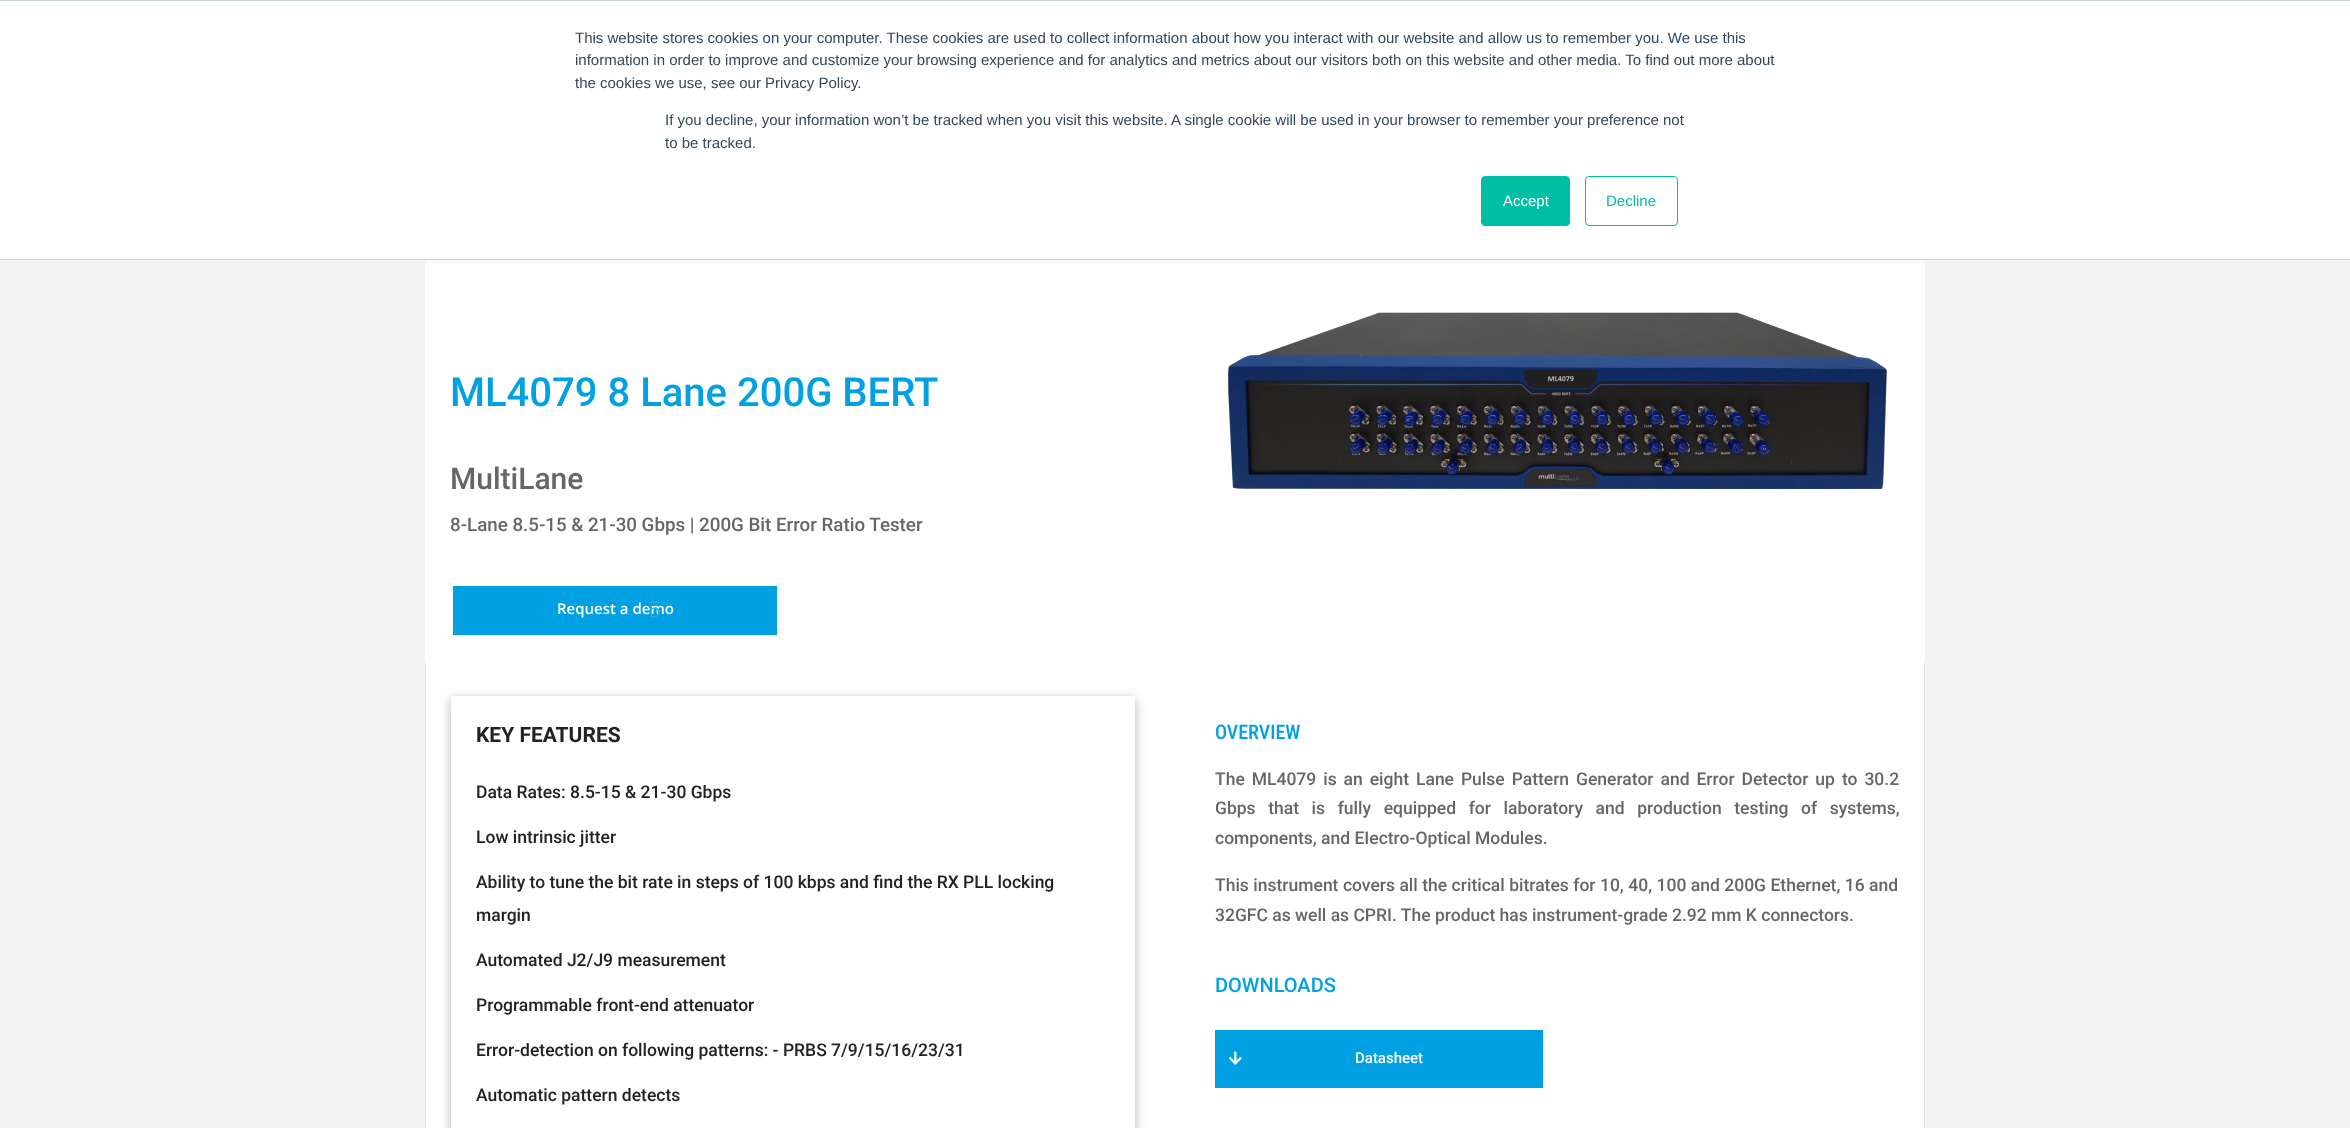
async function draw(canvas) {
	canvas.width = 2350;
	canvas.height = 1128;
	const c = canvas.getContext('2d');
	c.miterLimit = 4;
	c.fontKerning = 'normal';
	async function loadImage(src) {
		const img = new Image();
		img.src = src;
		await img.decode();
		return img;
	}

	c.fillStyle = '#f3f3f3';
	c.fillRect(0, 0, 2350, 1128);
	c.fillStyle = '#fff';
	c.fillRect(425, 260, 1500, 403);
	c.fillStyle = '#eaf0f6';
	c.filter = 'blur(3px)';
	c.beginPath();
	c.rect(0, 1, 2350, 260);
	c.fill();
	c.filter = 'none';
	for (const [x, y, w, h, color] of [
		[0, 1, 2350, 258, '#fff'],
		[0, 0, 2350, 1, '#cbd6e2'],
		[0, 259, 2350, 1, '#cbd6e2'],
	]) {
		c.fillStyle = color;
		c.fillRect(x, y, w, h);
	}
	c.font = '15px Liberation Sans';
	c.fillStyle = '#33475b';
	for (const [text, x, y] of [
		['This website stores cookies on your computer. These cookies are used to collect information about how you interact with our website and allow us to remember you. We use this', 575, 43],
		['information in order to improve and customize your browsing experience and for analytics and metrics about our visitors both on this website and other media. To find out more about', 575, 65],
		['the cookies we use, see our Privacy Policy.', 575, 88],
		['If you decline, your information won’t be tracked when you visit this website. A single cookie will be used in your browser to remember your preference not', 665, 125],
		['to be tracked.', 665, 148],
	]) {
		c.fillText(text, x, y);
	}
	c.fillStyle = '#00bda5';
	c.beginPath();
	c.roundRect(1481.5, 176.5, 88, 49, 3.5);
	c.fill();
	c.strokeStyle = '#00bda5';
	c.stroke();
	c.fillStyle = '#fff';
	c.fillText('Accept', 1503, 206);
	c.beginPath();
	c.roundRect(1585.5, 176.5, 92, 49, 3.5);
	c.stroke();
	c.fillStyle = '#00bda5';
	c.fillText('Decline', 1606, 206);
	c.font = '500 40px Roboto';
	c.fillStyle = '#00a1e3';
	c.fillText('ML4079 8 Lane 200G BERT', 450, 406);
	c.font = '500 30px Roboto';
	c.fillStyle = '#666';
	c.fillText('MultiLane', 450, 489);
	c.font = '500 18.75px Roboto';
	c.fillText('8-Lane 8.5-15 & 21-30 Gbps | 200G Bit Error Ratio Tester', 450, 531);
	c.fillStyle = '#00a1e3';
	c.fillRect(453, 586, 324, 49);
	c.font = '600 15px Open Sans';
	c.fillStyle = '#fff';
	c.fillText('Request a demo', 557, 614);
	c.font = '24px Liberation Serif';
	c.fillStyle = '#25aee7';
	c.fillText('5', 649, 617);
	c.drawImage(await loadImage('img1.png'), 1228, 312, 659, 178);
	for (const [x, y, w, h, color] of [
		[426, 663, 1498, 465, '#fff'],
		[1924, 663, 1, 465, '#e6e6e6'],
		[425, 663, 1, 465, '#e6e6e6'],
	]) {
		c.fillStyle = color;
		c.fillRect(x, y, w, h);
	}
	c.save();
	c.beginPath();
	c.moveTo(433, 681);
	c.lineTo(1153, 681);
	c.lineTo(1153, 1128);
	c.lineTo(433, 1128);
	c.closePath();
	c.moveTo(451, 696);
	c.lineTo(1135, 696);
	c.lineTo(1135, 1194);
	c.lineTo(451, 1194);
	c.closePath();
	c.clip('evenodd');
	c.fillStyle = '#0000004d';
	c.filter = 'blur(5.5px)';
	c.beginPath();
	c.rect(451, 699, 684, 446);
	c.fill();
	c.filter = 'none';
	c.restore();
	c.font = 'bold 21px Roboto';
	c.fillStyle = '#222';
	c.fillText('KEY FEATURES', 476, 742);
	c.font = '500 17.5px Roboto';
	for (const [text, x, y] of [
		['Data Rates: 8.5-15 & 21-30 Gbps', 476, 798],
		['Low intrinsic jitter', 476, 843],
		['Ability to tune the bit rate in steps of 100 kbps and find the RX PLL locking', 476, 888],
		['margin', 476, 921],
		['Automated J2/J9 measurement', 476, 966],
		['Programmable front-end attenuator', 476, 1011],
		['Error-detection on following patterns: - PRBS 7/9/15/16/23/31', 476, 1056],
		['Automatic pattern detects', 476, 1101],
	]) {
		c.fillText(text, x, y);
	}
	c.font = '500 20px Roboto Condensed';
	c.fillStyle = '#00a1e3';
	c.fillText('OVERVIEW', 1215, 739);
	c.wordSpacing = '2.6px';
	c.font = '500 17.5px Roboto';
	c.fillStyle = '#666';
	c.fillText('The ML4079 is an eight Lane Pulse Pattern Generator and Error Detector up to 30.2', 1215, 785);
	c.wordSpacing = '8.25px';
	c.fillText('Gbps that is fully equipped for laboratory and production testing of systems,', 1215, 814);
	c.wordSpacing = '0px';
	c.fillText('components, and EIectro-Optical Modules.', 1215, 844);
	c.wordSpacing = '0.1px';
	c.fillText('This instrument covers all the critical bitrates for 10, 40, 100 and 200G Ethernet, 16 and', 1215, 891);
	c.wordSpacing = '0px';
	c.fillText('32GFC as well as CPRI. The product has instrument-grade 2.92 mm K connectors.', 1215, 921);
	c.font = '500 20px Roboto';
	c.fillStyle = '#00a1e3';
	c.fillText('DOWNLOADS', 1215, 992);
	c.fillRect(1215, 1030, 328, 58);
	c.drawImage(await loadImage('img2.png'), 1229, 1051, 13, 14);
	c.font = '500 15px Roboto';
	c.fillStyle = '#fff';
	c.fillText('Datasheet', 1355, 1063);
}

draw(document.querySelector('canvas'));
